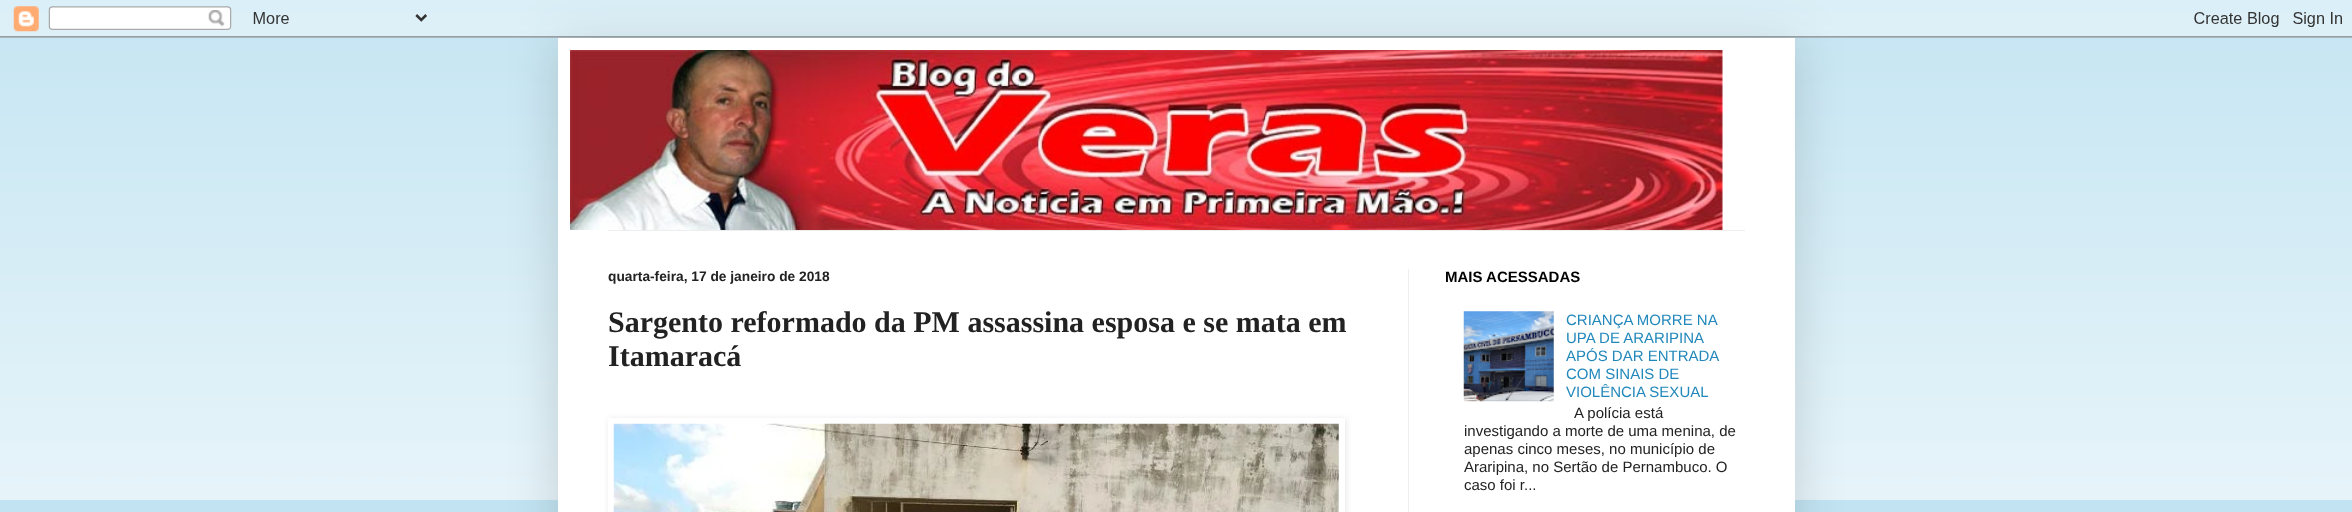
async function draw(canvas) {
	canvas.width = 2352;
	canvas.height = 512;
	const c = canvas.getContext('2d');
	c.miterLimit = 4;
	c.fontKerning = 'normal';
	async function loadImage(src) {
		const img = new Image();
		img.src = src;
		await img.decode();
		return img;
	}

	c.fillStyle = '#c2e4f2';
	c.fillRect(0, 0, 2352, 512);
	c.drawImage(await loadImage('img2.png'), 0, 13, 2352, 487);
	c.fillStyle = '#00000026';
	c.filter = 'blur(25px)';
	c.beginPath();
	c.rect(558, 38, 1237, 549);
	c.fill();
	c.filter = 'none';
	c.drawImage(await loadImage('img1.png'), 0, 0, 2352, 38);
	c.fillStyle = '#fff';
	c.fillRect(558, 38, 1237, 474);
	c.drawImage(await loadImage('img3.png'), 570, 50, 1153, 180);
	c.fillStyle = '#eee';
	c.fillRect(608, 230, 1137, 1);
	c.fillRect(1408, 269, 1, 243);
	c.font = 'bold 13.75px Liberation Sans';
	c.fillStyle = '#222';
	c.fillText('quarta-feira, 17 de janeiro de 2018', 608, 281);
	c.font = 'bold 30px Liberation Serif';
	c.fillText('Sargento reformado da PM assassina esposa e se mata em', 608, 332);
	c.fillText('Itamaracá', 608, 366);
	c.save();
	c.beginPath();
	c.moveTo(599, 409);
	c.lineTo(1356, 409);
	c.lineTo(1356, 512);
	c.lineTo(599, 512);
	c.closePath();
	c.moveTo(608, 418);
	c.lineTo(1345, 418);
	c.lineTo(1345, 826);
	c.lineTo(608, 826);
	c.closePath();
	c.clip('evenodd');
	c.fillStyle = '#0000001a';
	c.filter = 'blur(3px)';
	c.beginPath();
	c.rect(609, 419, 737, 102);
	c.fill();
	c.filter = 'none';
	c.restore();
	c.drawImage(await loadImage('img4.png'), 613, 423, 726, 89);
	c.font = 'bold 15px Liberation Sans';
	c.fillStyle = '#000';
	c.fillText('MAIS ACESSADAS', 1445, 282);
	c.drawImage(await loadImage('img5.png'), 1463, 311, 91, 91);
	c.font = '15px Liberation Sans';
	c.fillStyle = '#28b';
	for (const [text, x, y] of [
		['CRIANÇA MORRE NA', 1566, 325],
		['UPA DE ARARIPINA', 1566, 343],
		['APÓS DAR ENTRADA', 1566, 361],
		['COM SINAIS DE', 1566, 379],
		['VIOLÊNCIA SEXUAL', 1566, 397],
	]) {
		c.fillText(text, x, y);
	}
	c.fillStyle = '#222';
	for (const [text, x, y] of [
		['A polícia está', 1574, 418],
		['investigando a morte de uma menina, de', 1464, 436],
		['apenas cinco meses, no município de', 1464, 454],
		['Araripina, no Sertão de Pernambuco. O', 1464, 472],
		['caso foi r...', 1464, 490],
	]) {
		c.fillText(text, x, y);
	}
}

draw(document.querySelector('canvas'));
